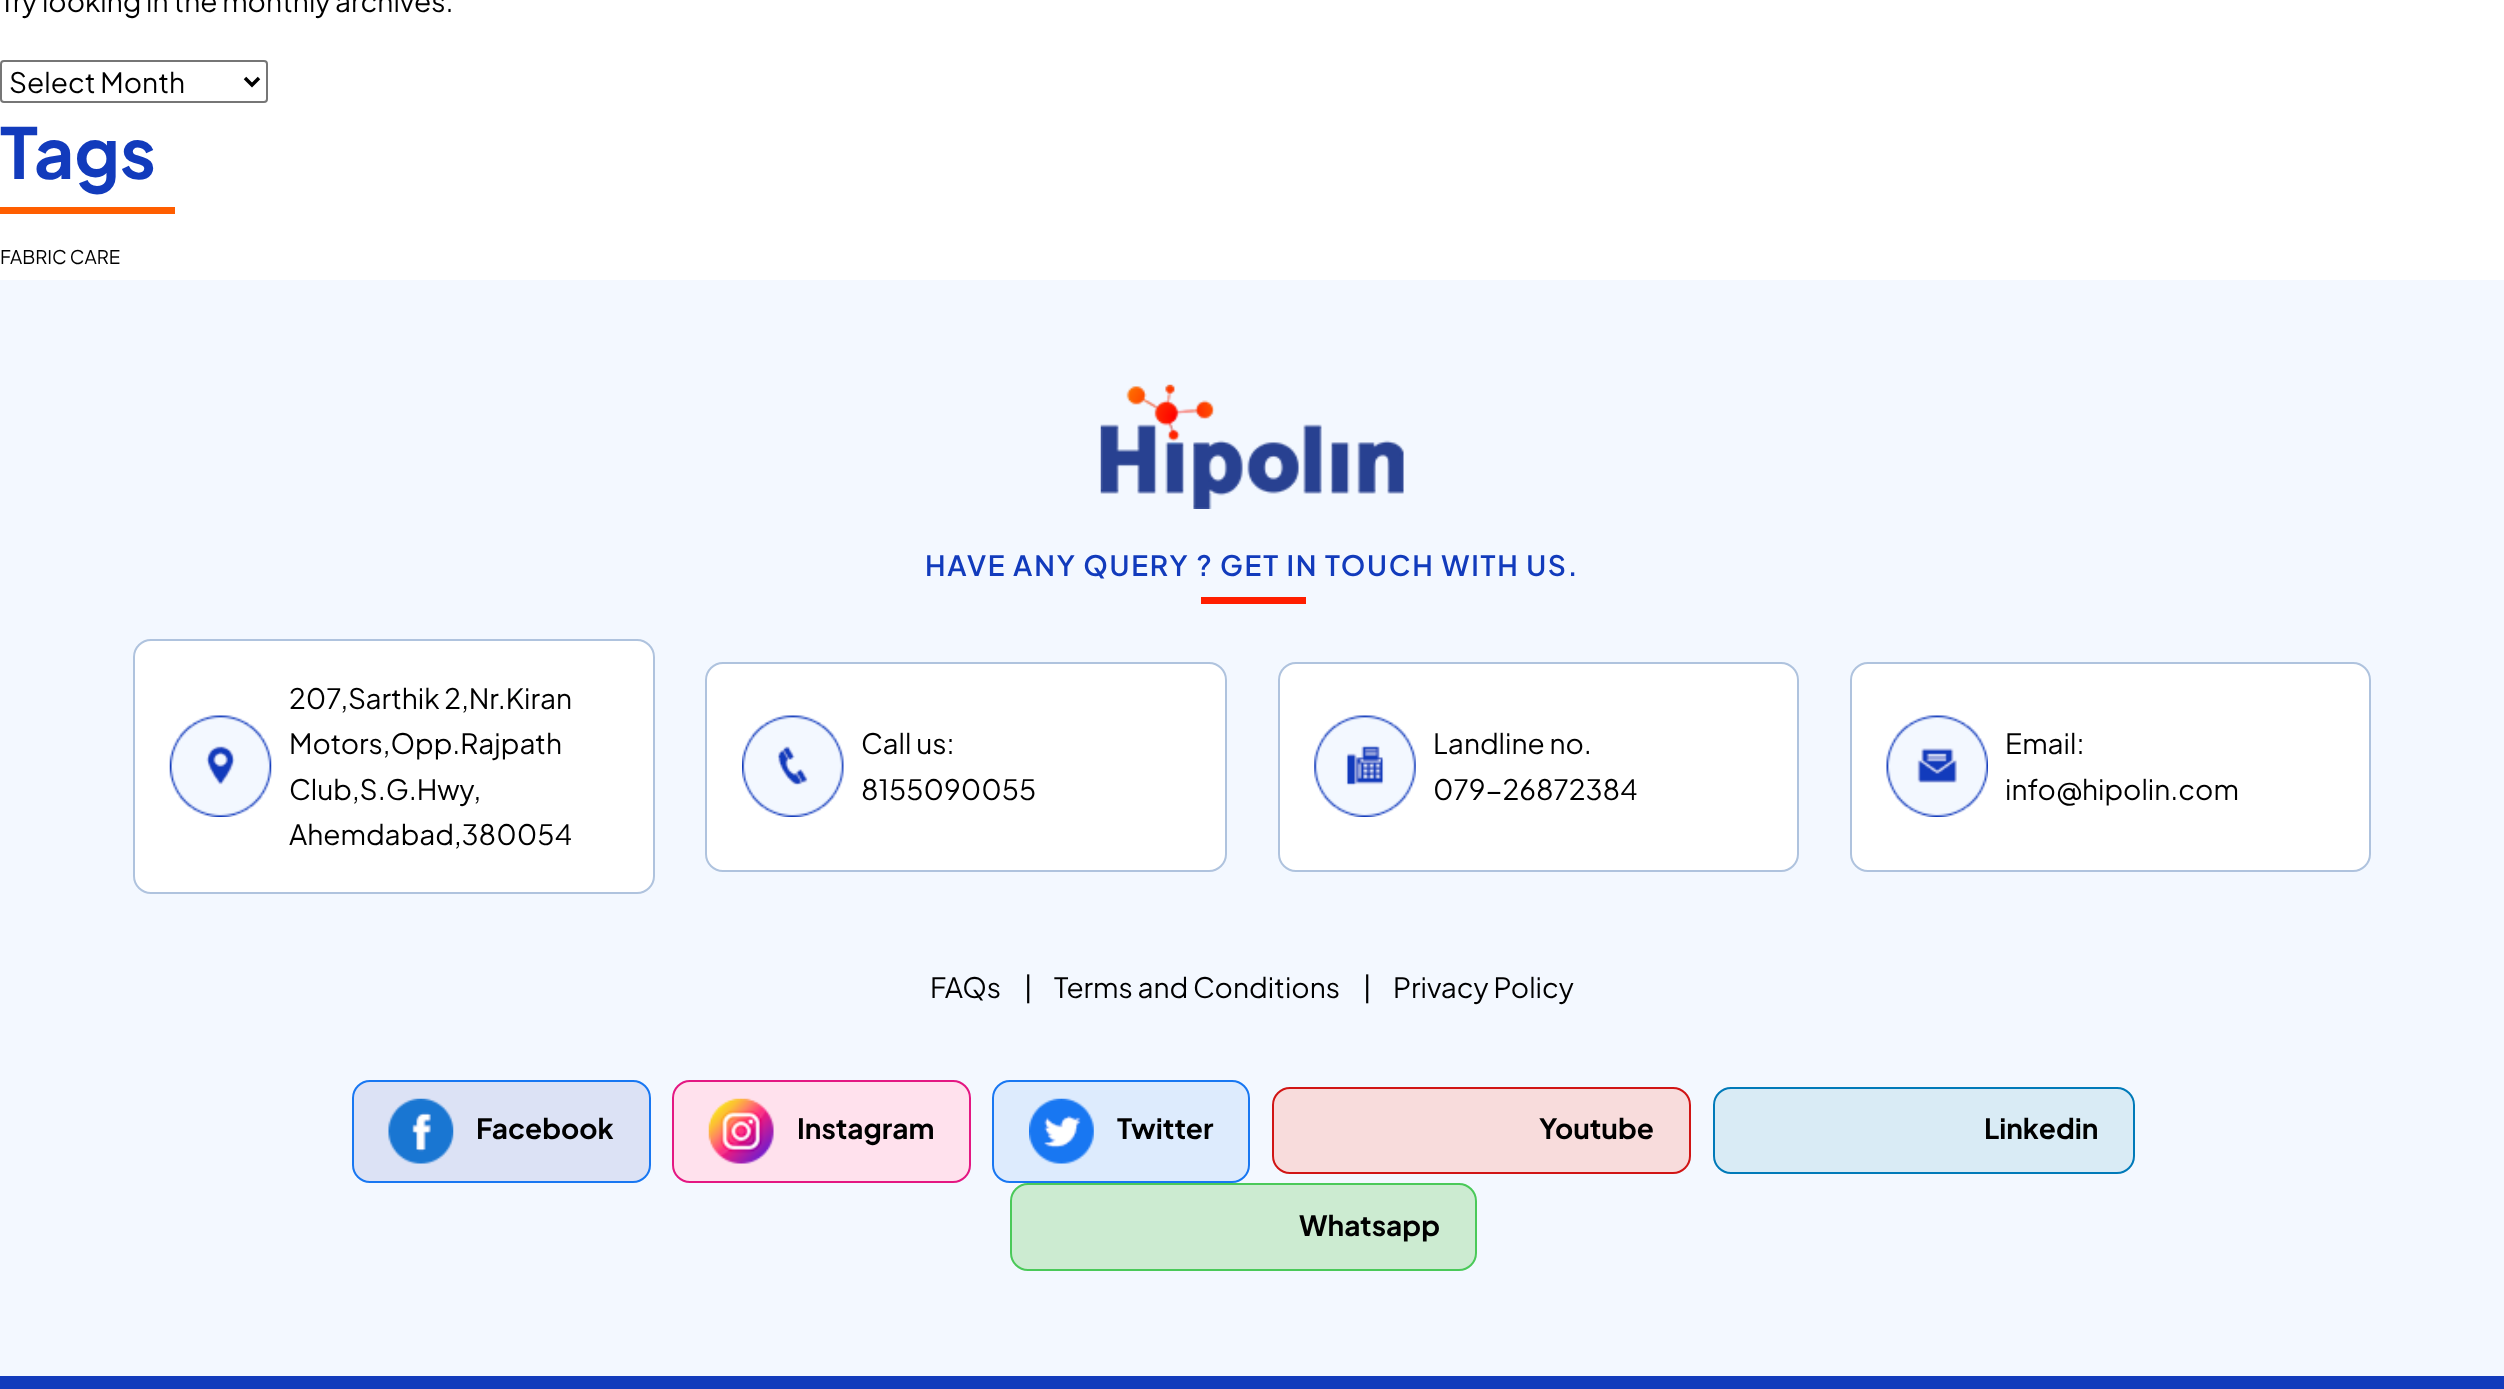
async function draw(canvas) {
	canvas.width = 2504;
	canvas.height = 1389;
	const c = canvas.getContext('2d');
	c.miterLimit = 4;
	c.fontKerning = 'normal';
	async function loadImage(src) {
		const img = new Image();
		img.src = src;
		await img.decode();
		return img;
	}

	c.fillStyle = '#fff';
	c.fillRect(0, 0, 2504, 1389);
	c.font = '28px Plus Jakarta Sans';
	c.fillStyle = '#000';
	c.fillText('Try looking in the monthly archives.', 0, 12);
	c.beginPath();
	c.roundRect(1, 61, 266, 41, 3);
	c.strokeStyle = '#767676';
	c.lineWidth = 2;
	c.stroke();
	c.beginPath();
	c.moveTo(245, 78);
	c.lineTo(252, 85);
	c.lineTo(259, 78);
	c.strokeStyle = '#000';
	c.lineWidth = 3.5;
	c.stroke();
	c.fillText('Select Month', 9, 93);
	c.font = 'bold 70px Plus Jakarta Sans';
	c.fillStyle = '#123bbc';
	c.fillText('Tags', 0, 179);
	c.fillStyle = '#ff5e00';
	c.fillRect(0, 207, 175, 7);
	c.font = '18.75px Plus Jakarta Sans';
	c.fillStyle = '#000';
	c.fillText('FABRIC CARE', 0, 264);
	c.fillStyle = '#f3f8ff';
	c.fillRect(0, 280, 2504, 1096);
	c.drawImage(await loadImage('img1.png'), 1100, 384, 304, 125);
	c.letterSpacing = '1.75px';
	c.font = '600 28px Plus Jakarta Sans';
	c.fillStyle = '#123bbc';
	c.fillText('HAVE ANY QUERY ? GET IN TOUCH WITH US.', 925, 576);
	c.fillStyle = '#ff1e00';
	c.fillRect(1201, 597, 105, 7);
	c.fillStyle = '#fff';
	c.beginPath();
	c.roundRect(134, 640, 520, 253, 17);
	c.fill();
	c.strokeStyle = '#afc3de';
	c.lineWidth = 2;
	c.stroke();
	c.drawImage(await loadImage('img2.png'), 169, 715, 103, 102);
	c.letterSpacing = '0px';
	c.font = '28px Plus Jakarta Sans';
	c.fillStyle = '#000';
	for (const [text, x, y] of [
		['207,Sarthik 2,Nr.Kiran', 289, 709],
		['Motors,Opp.Rajpath', 289, 754],
		['Club,S.G.Hwy,', 289, 800],
		['Ahemdabad,380054', 289, 845],
	]) {
		c.fillText(text, x, y);
	}
	c.fillStyle = '#fff';
	c.beginPath();
	c.roundRect(706, 663, 520, 208, 17);
	c.fill();
	c.stroke();
	c.drawImage(await loadImage('img3.png'), 742, 715, 102, 102);
	c.fillStyle = '#000';
	c.fillText('Call us:', 861, 754);
	c.fillText('8155090055', 861, 800);
	c.fillStyle = '#fff';
	c.beginPath();
	c.roundRect(1279, 663, 519, 208, 17);
	c.fill();
	c.stroke();
	c.drawImage(await loadImage('img4.png'), 1314, 715, 102, 102);
	c.fillStyle = '#000';
	c.fillText('Landline no.', 1433, 754);
	c.fillText('079-26872384', 1433, 800);
	c.fillStyle = '#fff';
	c.beginPath();
	c.roundRect(1851, 663, 519, 208, 17);
	c.fill();
	c.stroke();
	c.drawImage(await loadImage('img5.png'), 1886, 715, 102, 102);
	c.fillStyle = '#000';
	for (const [text, x, y] of [
		['Email:', 2005, 754],
		['info@hipolin.com', 2005, 800],
		['FAQs', 930, 998],
		['|', 1024, 998],
		['Terms and Conditions', 1054, 998],
		['|', 1363, 998],
		['Privacy Policy', 1393, 998],
	]) {
		c.fillText(text, x, y);
	}
	c.fillStyle = '#dce2f5';
	c.beginPath();
	c.roundRect(353, 1081, 297, 101, 17);
	c.fill();
	c.strokeStyle = '#1877f2';
	c.stroke();
	c.drawImage(await loadImage('img6.png'), 388, 1098, 66, 66);
	c.font = 'bold 28px Plus Jakarta Sans';
	c.fillStyle = '#000';
	c.fillText('Facebook', 476, 1139);
	c.fillStyle = '#ffe1ed';
	c.beginPath();
	c.roundRect(673, 1081, 297, 101, 17);
	c.fill();
	c.strokeStyle = '#e41782';
	c.stroke();
	c.drawImage(await loadImage('img7.png'), 708, 1098, 66, 66);
	c.fillStyle = '#000';
	c.fillText('Instagram', 797, 1139);
	c.fillStyle = '#ddebfd';
	c.beginPath();
	c.roundRect(993, 1081, 256, 101, 17);
	c.fill();
	c.strokeStyle = '#1877f2';
	c.stroke();
	c.drawImage(await loadImage('img8.png'), 1029, 1098, 65, 66);
	c.fillStyle = '#000';
	c.fillText('Twitter', 1117, 1139);
	c.fillStyle = '#f8dcdc';
	c.beginPath();
	c.roundRect(1273, 1088, 417, 85, 17);
	c.fill();
	c.strokeStyle = '#d11515';
	c.stroke();
	c.fillStyle = '#000';
	c.fillText('Youtube', 1539, 1139);
	c.fillStyle = '#d9ebf5';
	c.beginPath();
	c.roundRect(1714, 1088, 420, 85, 17);
	c.fill();
	c.strokeStyle = '#007ab9';
	c.stroke();
	c.fillStyle = '#000';
	c.fillText('Linkedin', 1984, 1139);
	c.fillStyle = '#ccebd1';
	c.beginPath();
	c.roundRect(1011, 1184, 465, 86, 17);
	c.fill();
	c.strokeStyle = '#4ac959';
	c.stroke();
	c.fillStyle = '#000';
	c.fillText('Whatsapp', 1299, 1236);
	c.fillStyle = '#123bbc';
	c.fillRect(0, 1376, 2504, 13);
}

draw(document.querySelector('canvas'));
